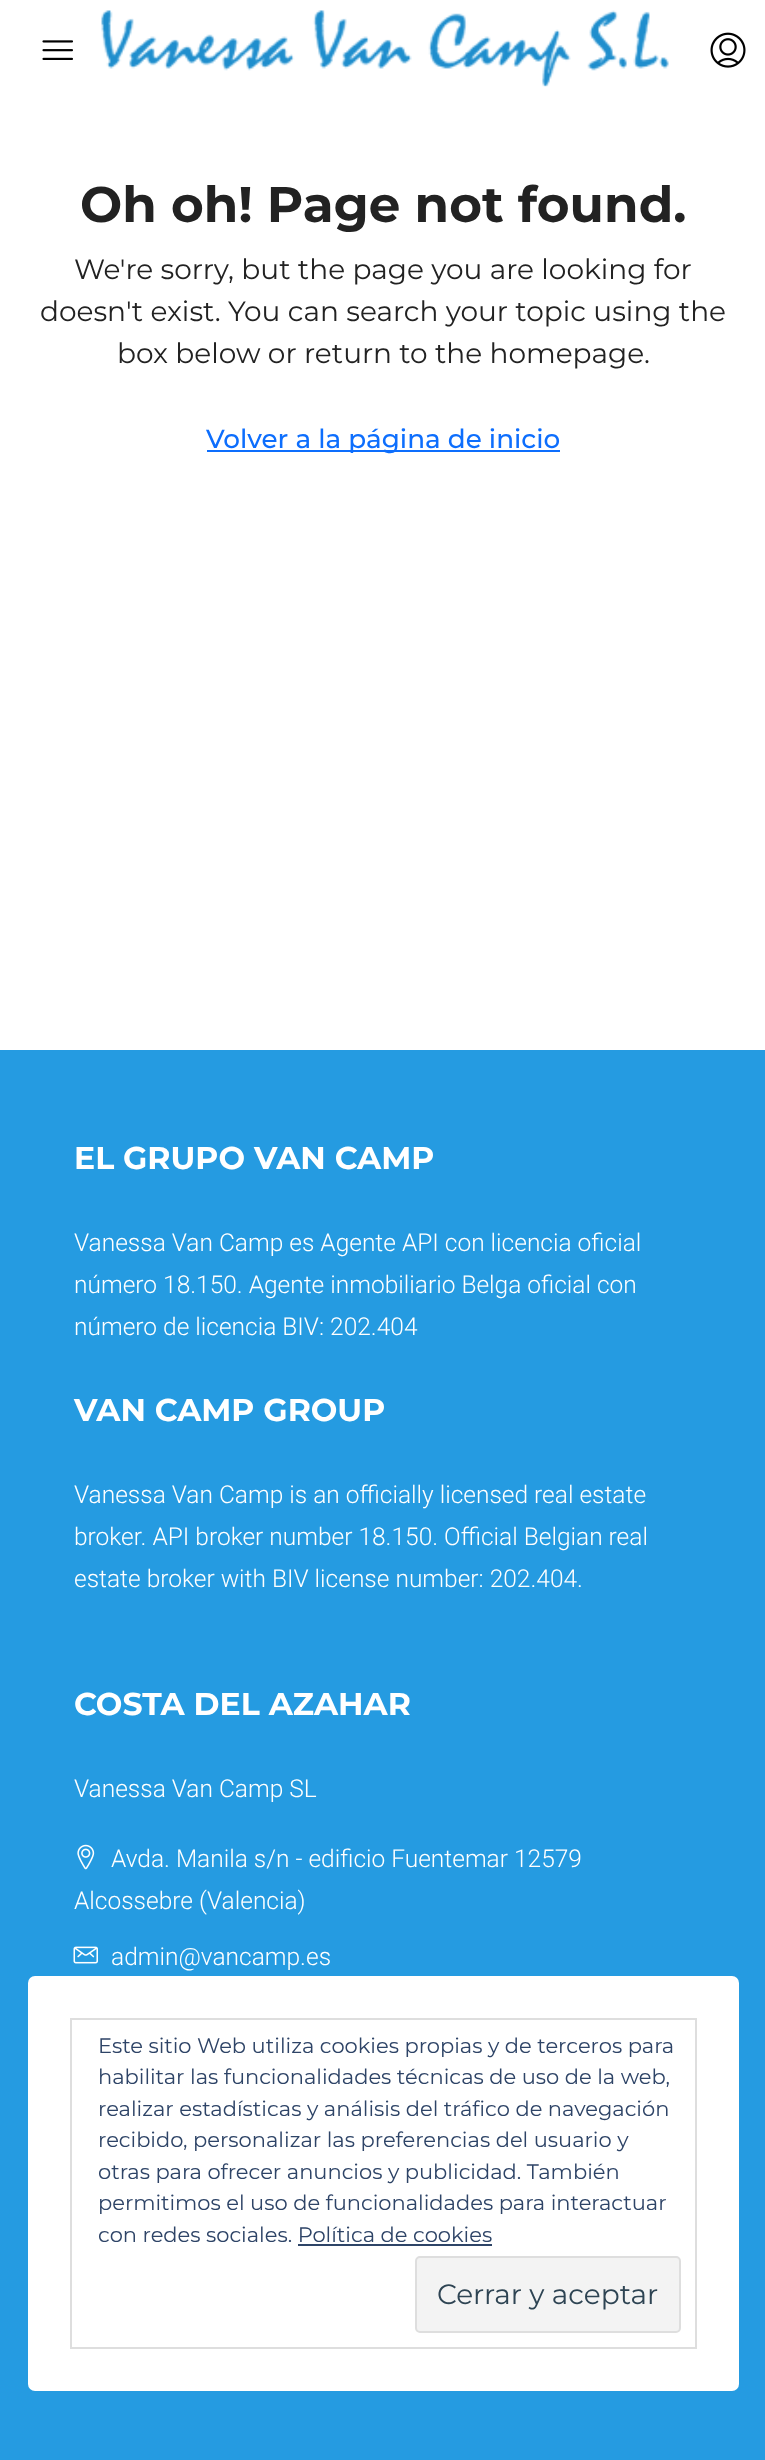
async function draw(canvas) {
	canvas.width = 765;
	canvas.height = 2460;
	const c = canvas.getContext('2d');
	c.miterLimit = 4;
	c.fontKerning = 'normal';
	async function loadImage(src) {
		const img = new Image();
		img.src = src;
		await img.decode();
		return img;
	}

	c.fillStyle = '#fff';
	c.fillRect(0, 0, 765, 2460);
	c.drawImage(await loadImage('img1.png'), 42, 40, 31, 20);
	c.drawImage(await loadImage('img2.png'), 101, 10, 568, 77);
	c.drawImage(await loadImage('img3.png'), 710, 32, 36, 36);
	c.font = 'bold 50px Montserrat';
	c.fillStyle = '#222';
	c.fillText('Oh oh! Page not found.', 80, 222);
	c.font = '28px Montserrat';
	for (const [text, x, y] of [
		['We\'re sorry, but the page you are looking for', 74, 279],
		['doesn\'t exist. You can search your topic using the', 40, 321],
		['box below or return to the homepage.', 117, 363],
	]) {
		c.fillText(text, x, y);
	}
	c.fillStyle = '#0d6efd';
	c.fillRect(207, 450, 353, 2);
	c.font = '500 26.25px Montserrat';
	c.fillText('Volver a la página de inicio', 206, 448);
	c.fillStyle = '#259be1';
	c.fillRect(0, 1050, 765, 1410);
	c.font = 'bold 31.5px Montserrat';
	c.fillStyle = '#fff';
	c.fillText('EL GRUPO VAN CAMP', 74, 1169);
	c.font = '300 24.5px Roboto';
	for (const [text, x, y] of [
		['Vanessa Van Camp es Agente API con licencia oficial', 74, 1251],
		['número 18.150. Agente inmobiliario Belga oficial con', 74, 1293],
		['número de licencia BIV: 202.404', 74, 1335],
	]) {
		c.fillText(text, x, y);
	}
	c.font = 'bold 31.5px Montserrat';
	c.fillText('VAN CAMP GROUP', 74, 1421);
	c.font = '300 24.5px Roboto';
	for (const [text, x, y] of [
		['Vanessa Van Camp is an officially licensed real estate', 74, 1503],
		['broker. API broker number 18.150. Official Belgian real', 74, 1545],
		['estate broker with BIV license number: 202.404.', 74, 1587],
	]) {
		c.fillText(text, x, y);
	}
	c.font = 'bold 31.5px Montserrat';
	c.fillText('COSTA DEL AZAHAR', 74, 1715);
	c.font = '300 24.5px Roboto';
	c.fillText('Vanessa Van Camp SL', 74, 1797);
	c.drawImage(await loadImage('img4.png'), 77, 1844, 18, 26);
	c.fillText('Avda. Manila s/n - edificio Fuentemar 12579', 111, 1867);
	c.fillText('Alcossebre (Valencia)', 74, 1909);
	c.drawImage(await loadImage('img5.png'), 73, 1946, 25, 18);
	c.fillText('admin@vancamp.es', 111, 1965);
	c.beginPath();
	c.roundRect(28, 1976, 711, 415, 7);
	c.fill();
	c.strokeStyle = '#dedede';
	c.lineWidth = 2;
	c.strokeRect(71, 2019, 625, 329);
	c.font = '21px Montserrat';
	c.fillStyle = '#2e4467';
	for (const [text, x, y] of [
		['Este sitio Web utiliza cookies propias y de terceros para', 98, 2053],
		['habilitar las funcionalidades técnicas de uso de la web,', 98, 2084],
		['realizar estadísticas y análisis del tráfico de navegación', 98, 2116],
		['recibido, personalizar las preferencias del usuario y', 98, 2147],
		['otras para ofrecer anuncios y publicidad. También', 98, 2179],
		['permitimos el uso de funcionalidades para interactuar', 98, 2210],
		['con redes sociales. Política de cookies', 98, 2242],
	]) {
		c.fillText(text, x, y);
	}
	c.fillRect(298, 2244, 194, 2);
	c.fillStyle = '#f3f3f3';
	c.beginPath();
	c.roundRect(416, 2257, 264, 75, 4);
	c.fill();
	c.stroke();
	c.font = '28px Montserrat';
	c.fillStyle = '#2e4453';
	c.fillText('Cerrar y aceptar', 437, 2304);
}

draw(document.querySelector('canvas'));
